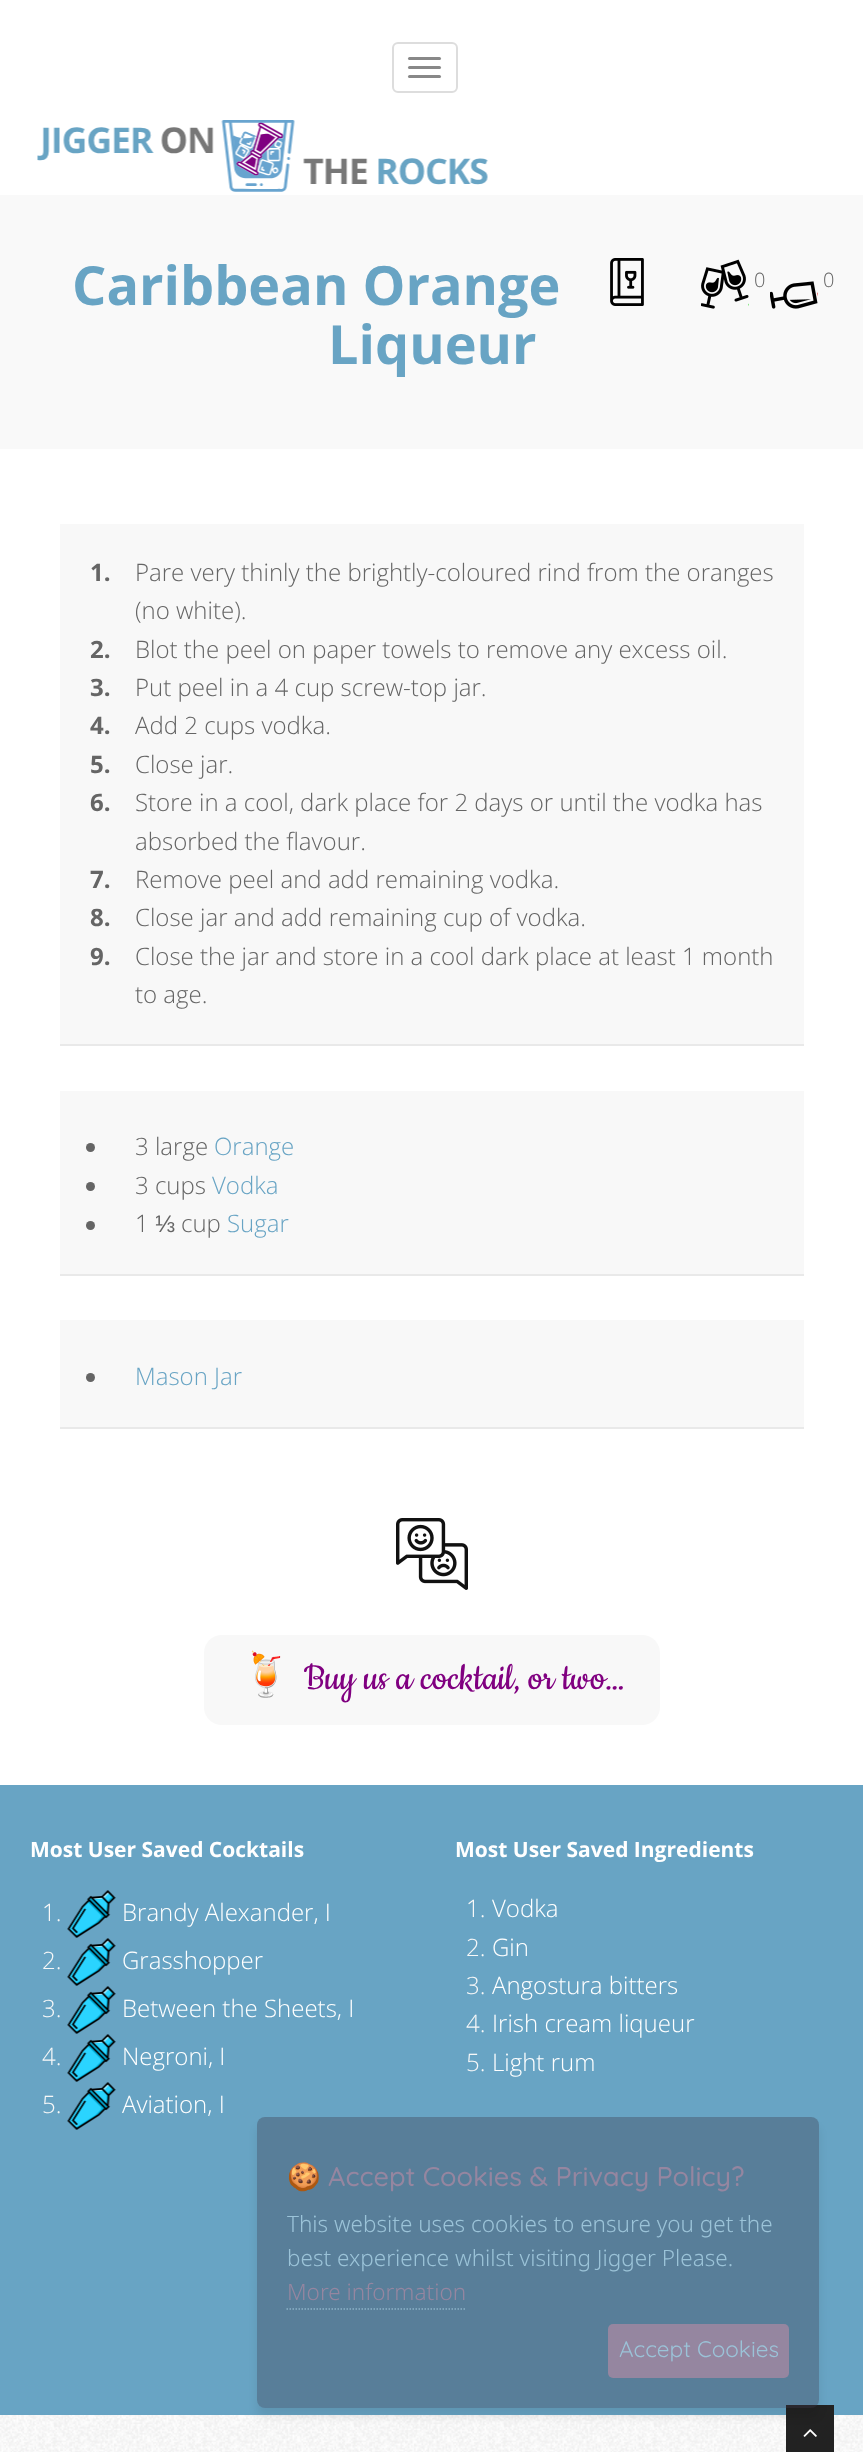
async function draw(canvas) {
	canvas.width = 863;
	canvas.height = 2452;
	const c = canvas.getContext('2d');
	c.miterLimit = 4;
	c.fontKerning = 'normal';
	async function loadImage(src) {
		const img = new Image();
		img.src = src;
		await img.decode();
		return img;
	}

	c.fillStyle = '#fff';
	c.fillRect(0, 0, 863, 2452);
	c.drawImage(await loadImage('img1.png'), 0, 2415, 863, 37);
	c.beginPath();
	c.roundRect(393, 43, 64, 49, 5);
	c.strokeStyle = '#ddd';
	c.lineWidth = 2;
	c.stroke();
	c.fillStyle = '#888';
	c.beginPath();
	c.roundRect(408, 57, 33, 3, 1.5);
	c.fill();
	c.beginPath();
	c.roundRect(408, 66, 33, 3, 1.5);
	c.fill();
	c.beginPath();
	c.roundRect(408, 75, 33, 3, 1.5);
	c.fill();
	c.drawImage(await loadImage('img2.png'), 37, 120, 451, 72);
	c.fillStyle = '#f9f9f9';
	c.fillRect(0, 195, 863, 254);
	c.font = 'bold 54px Open Sans';
	c.fillStyle = '#68a4c4';
	c.fillText('Caribbean Orange', 72, 305);
	c.fillText('Liqueur', 328, 364);
	c.drawImage(await loadImage('img3.png'), 610, 258, 34, 48);
	c.drawImage(await loadImage('img4.png'), 701, 259, 48, 50);
	c.font = '300 20px Open Sans';
	c.fillStyle = '#656565';
	c.fillText('0', 754, 287);
	c.drawImage(await loadImage('img5.png'), 770, 281, 48, 28);
	c.fillText('0', 823, 287);
	c.fillStyle = '#f8f8f8';
	c.fillRect(60, 524, 744, 520);
	c.fillStyle = '#e9e9e9';
	c.fillRect(60, 1044, 744, 2);
	c.font = 'bold 24px Open Sans';
	c.fillStyle = '#656565';
	c.fillText('1.', 90, 581);
	c.font = '300 24px Open Sans';
	c.fillText('Pare very thinly the brightly-coloured rind from the oranges', 135, 581);
	c.fillText('(no white).', 135, 619);
	c.font = 'bold 24px Open Sans';
	c.fillText('2.', 90, 658);
	c.font = '300 24px Open Sans';
	c.fillText('Blot the peel on paper towels to remove any excess oil.', 135, 658);
	c.font = 'bold 24px Open Sans';
	c.fillText('3.', 90, 696);
	c.font = '300 24px Open Sans';
	c.fillText('Put peel in a 4 cup screw-top jar.', 135, 696);
	c.font = 'bold 24px Open Sans';
	c.fillText('4.', 90, 734);
	c.font = '300 24px Open Sans';
	c.fillText('Add 2 cups vodka.', 135, 734);
	c.font = 'bold 24px Open Sans';
	c.fillText('5.', 90, 773);
	c.font = '300 24px Open Sans';
	c.fillText('Close jar.', 135, 773);
	c.font = 'bold 24px Open Sans';
	c.fillText('6.', 90, 811);
	c.font = '300 24px Open Sans';
	c.fillText('Store in a cool, dark place for 2 days or until the vodka has', 135, 811);
	c.fillText('absorbed the flavour.', 135, 850);
	c.font = 'bold 24px Open Sans';
	c.fillText('7.', 90, 888);
	c.font = '300 24px Open Sans';
	c.fillText('Remove peel and add remaining vodka.', 135, 888);
	c.font = 'bold 24px Open Sans';
	c.fillText('8.', 90, 926);
	c.font = '300 24px Open Sans';
	c.fillText('Close jar and add remaining cup of vodka.', 135, 926);
	c.font = 'bold 24px Open Sans';
	c.fillText('9.', 90, 965);
	c.font = '300 24px Open Sans';
	c.fillText('Close the jar and store in a cool dark place at least 1 month', 135, 965);
	c.fillText('to age.', 135, 1003);
	c.fillStyle = '#f8f8f8';
	c.fillRect(60, 1091, 744, 183);
	c.fillStyle = '#e9e9e9';
	c.fillRect(60, 1274, 744, 2);
	c.fillStyle = '#656565';
	c.beginPath();
	c.arc(90.5, 1147.5, 4.5, 0, 2 * Math.PI);
	c.fill();
	c.fillText('3 large', 135, 1155);
	c.fillStyle = '#68a4c4';
	c.fillText('Orange', 214, 1155);
	c.fillStyle = '#656565';
	c.beginPath();
	c.arc(90.5, 1186.5, 4.5, 0, 2 * Math.PI);
	c.fill();
	c.fillText('3 cups', 135, 1194);
	c.fillStyle = '#68a4c4';
	c.fillText('Vodka', 212, 1194);
	c.fillStyle = '#656565';
	c.beginPath();
	c.arc(90.5, 1225.5, 4.5, 0, 2 * Math.PI);
	c.fill();
	c.fillText('1', 135, 1232);
	c.font = '24px Liberation Sans';
	c.fillText('⅓', 155, 1232);
	c.font = '300 24px Open Sans';
	c.fillText('cup', 181, 1232);
	c.fillStyle = '#68a4c4';
	c.fillText('Sugar', 227, 1232);
	c.fillStyle = '#f8f8f8';
	c.fillRect(60, 1320, 744, 107);
	c.fillStyle = '#e9e9e9';
	c.fillRect(60, 1427, 744, 2);
	c.fillStyle = '#656565';
	c.beginPath();
	c.arc(90.5, 1377.5, 4.5, 0, 2 * Math.PI);
	c.fill();
	c.fillStyle = '#68a4c4';
	c.fillText('Mason Jar', 135, 1385);
	c.drawImage(await loadImage('img6.png'), 396, 1518, 72, 72);
	c.fillStyle = '#f8f8f8';
	c.beginPath();
	c.roundRect(204, 1635, 456, 90, 18);
	c.fill();
	c.font = '42px Noto Color Emoji';
	c.fillStyle = '#800080';
	c.fillText('🍹', 240, 1689);
	c.font = '42px Cookie';
	c.fillText('Buy us a cocktail, or two…', 304, 1689);
	c.fillStyle = '#68a4c4';
	c.fillRect(0, 1785, 863, 630);
	c.font = 'bold 21px Open Sans';
	c.fillStyle = '#fff';
	c.fillText('Most User Saved Cocktails', 30, 1857);
	c.font = '300 24px Open Sans';
	c.fillStyle = '#f8f8f8';
	c.fillText('1.', 42, 1921);
	c.drawImage(await loadImage('img7.png'), 67, 1890, 49, 48);
	c.fillStyle = '#fff';
	c.fillText('Brandy Alexander, I', 122, 1921);
	c.fillStyle = '#f8f8f8';
	c.fillText('2.', 42, 1969);
	c.drawImage(await loadImage('img7.png'), 67, 1938, 49, 48);
	c.fillStyle = '#fff';
	c.fillText('Grasshopper', 122, 1969);
	c.fillStyle = '#f8f8f8';
	c.fillText('3.', 42, 2017);
	c.drawImage(await loadImage('img7.png'), 67, 1986, 49, 48);
	c.fillStyle = '#fff';
	c.fillText('Between the Sheets, I', 122, 2017);
	c.fillStyle = '#f8f8f8';
	c.fillText('4.', 42, 2065);
	c.drawImage(await loadImage('img7.png'), 67, 2034, 49, 48);
	c.fillStyle = '#fff';
	c.fillText('Negroni, I', 122, 2065);
	c.fillStyle = '#f8f8f8';
	c.fillText('5.', 42, 2113);
	c.drawImage(await loadImage('img7.png'), 67, 2082, 49, 48);
	c.fillStyle = '#fff';
	c.fillText('Aviation, I', 122, 2113);
	c.font = 'bold 21px Open Sans';
	c.fillText('Most User Saved Ingredients', 455, 1857);
	c.font = '300 24px Open Sans';
	c.fillStyle = '#f8f8f8';
	c.fillText('1.', 466, 1917);
	c.fillStyle = '#fff';
	c.fillText('Vodka', 492, 1917);
	c.fillStyle = '#f8f8f8';
	c.fillText('2.', 466, 1956);
	c.fillStyle = '#fff';
	c.fillText('Gin', 492, 1956);
	c.fillStyle = '#f8f8f8';
	c.fillText('3.', 466, 1994);
	c.fillStyle = '#fff';
	c.fillText('Angostura bitters', 492, 1994);
	c.fillStyle = '#f8f8f8';
	c.fillText('4.', 466, 2032);
	c.fillStyle = '#fff';
	c.fillText('Irish cream liqueur', 492, 2032);
	c.fillStyle = '#f8f8f8';
	c.fillText('5.', 466, 2071);
	c.fillStyle = '#fff';
	c.fillText('Light rum', 492, 2071);
	c.fillStyle = '#222';
	c.fillRect(786, 2405, 48, 47);
	c.drawImage(await loadImage('img8.png'), 803, 2429, 14, 8);
	c.save();
	c.beginPath();
	c.moveTo(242, 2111);
	c.lineTo(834, 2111);
	c.lineTo(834, 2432);
	c.lineTo(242, 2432);
	c.closePath();
	c.moveTo(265, 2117);
	c.lineTo(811, 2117);
	c.bezierCurveTo(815.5, 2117, 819, 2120.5, 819, 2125);
	c.lineTo(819, 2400);
	c.bezierCurveTo(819, 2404.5, 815.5, 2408, 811, 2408);
	c.lineTo(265, 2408);
	c.bezierCurveTo(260.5, 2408, 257, 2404.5, 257, 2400);
	c.lineTo(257, 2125);
	c.bezierCurveTo(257, 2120.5, 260.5, 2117, 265, 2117);
	c.closePath();
	c.clip('evenodd');
	c.fillStyle = '#00000014';
	c.filter = 'blur(4.5px)';
	c.beginPath();
	c.roundRect(257, 2126, 562, 291, 8);
	c.fill();
	c.filter = 'none';
	c.restore();
	c.fillStyle = '#3b364657';
	c.beginPath();
	c.roundRect(257, 2117, 562, 291, 8);
	c.fill();
	c.font = '27px Noto Color Emoji';
	c.fillStyle = '#9586a0';
	c.fillText('🍪', 287, 2186);
	c.font = '500 27px Quicksand';
	c.fillText('Accept Cookies & Privacy Policy?', 328, 2186);
	c.font = '300 22.5px Noto Sans';
	c.fillStyle = '#9bc3d8';
	c.fillText('This website uses cookies to ensure you get the', 287, 2232);
	c.fillText('best experience whilst visiting Jigger Please.', 287, 2266);
	c.fillStyle = '#9586a0';
	c.fillText('More information', 287, 2300);
	c.beginPath();
	c.moveTo(286.5, 2309);
	c.lineTo(465, 2309);
	c.strokeStyle = '#8ab2c8';
	c.lineWidth = 1.5;
	c.setLineDash([1.5, 1.5]);
	c.stroke();
	c.beginPath();
	c.roundRect(608, 2324, 181, 54, 5);
	c.fill();
	c.font = '22.5px Quicksand';
	c.fillStyle = '#9bc3d8';
	c.fillText('Accept Cookies', 619, 2357);
}

draw(document.querySelector('canvas'));
